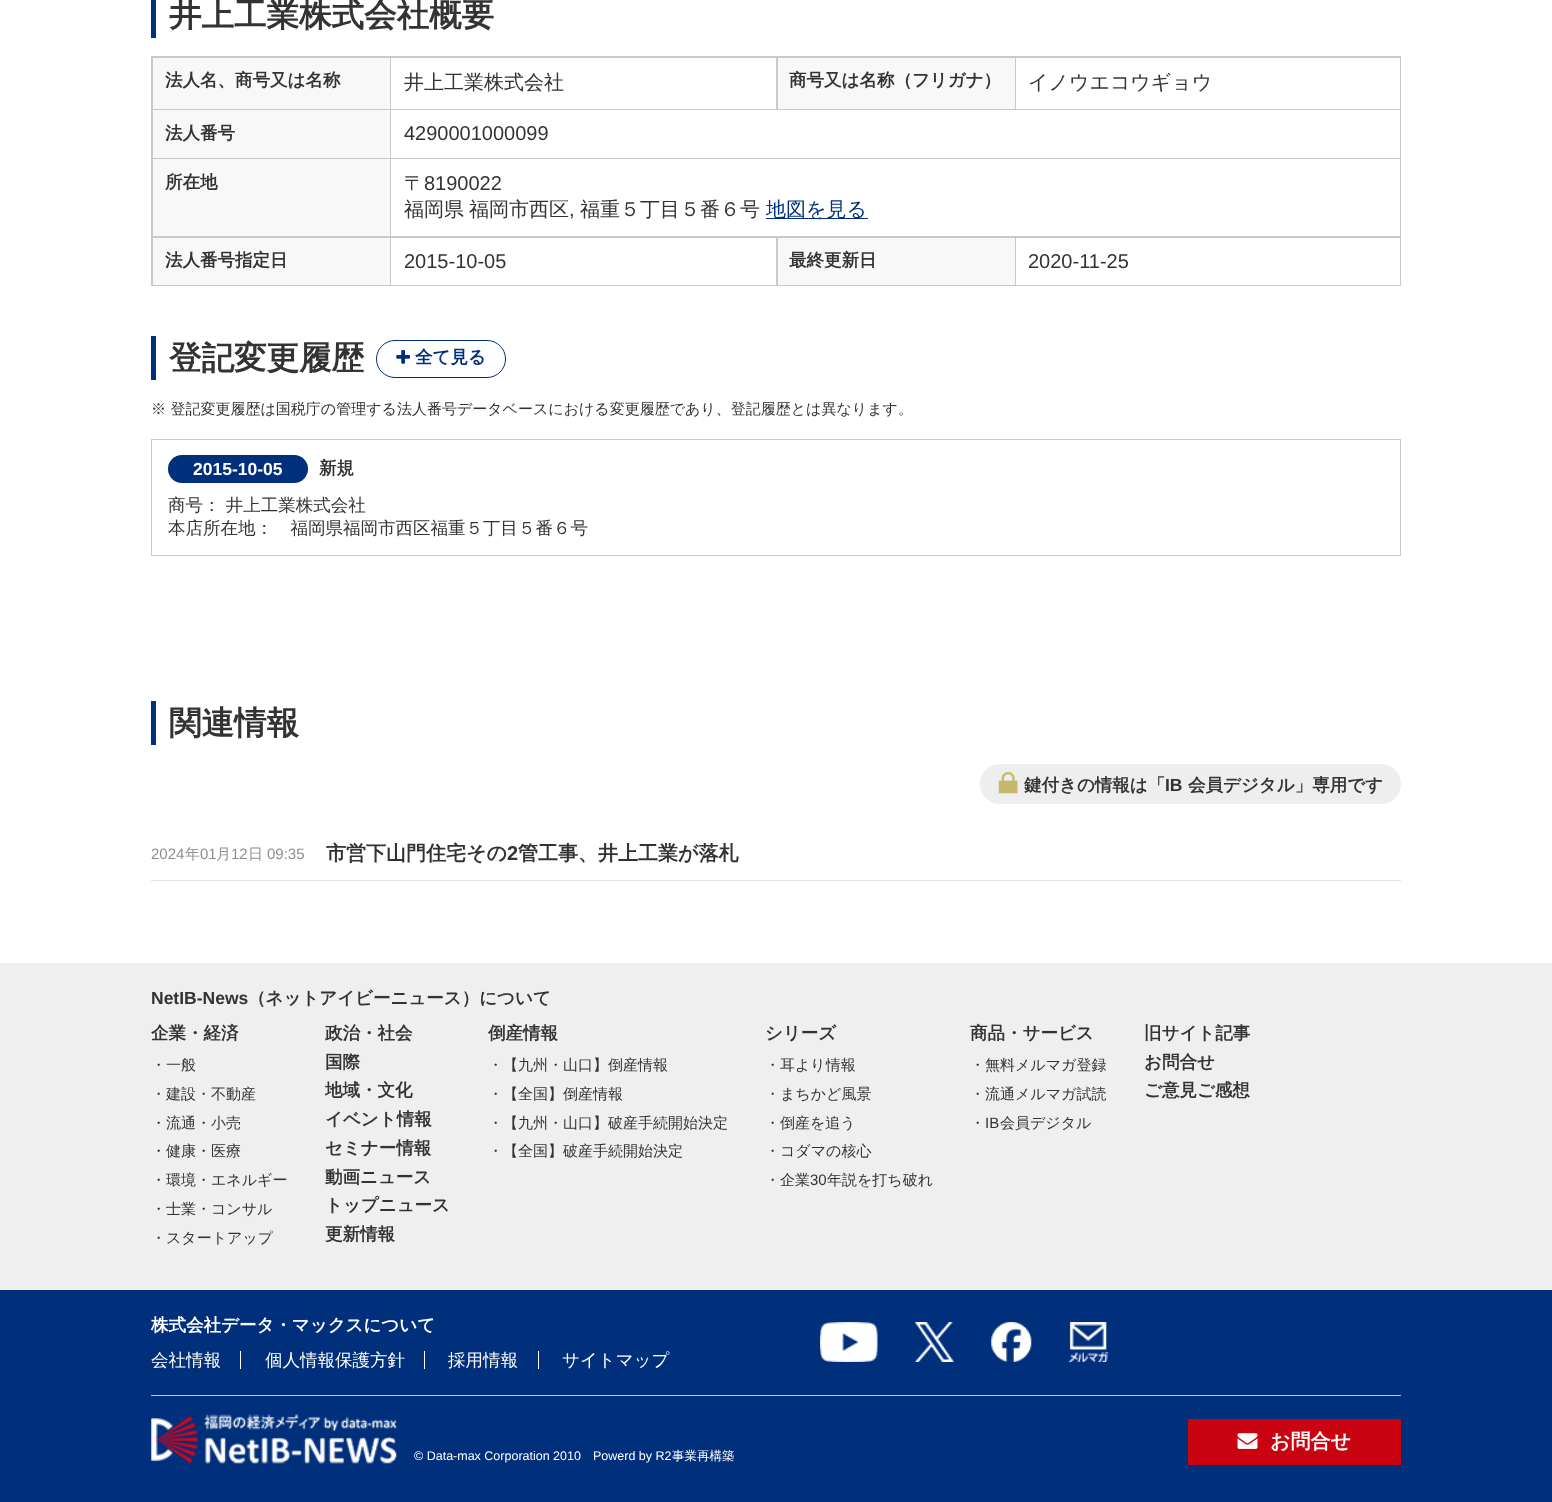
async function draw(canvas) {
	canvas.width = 1552;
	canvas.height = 1502;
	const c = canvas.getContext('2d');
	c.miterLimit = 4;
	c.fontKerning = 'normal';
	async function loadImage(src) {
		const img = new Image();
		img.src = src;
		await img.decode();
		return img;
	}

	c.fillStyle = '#fff';
	c.fillRect(0, 0, 1552, 1502);
	c.fillStyle = '#002f7b';
	c.fillRect(151, 0, 5, 38);
	c.font = 'bold 32.5px WenQuanYi Zen Hei';
	c.fillStyle = '#333';
	c.fillText('井上工業株式会社概要', 169, 26);
	c.fillStyle = '#c9c9c9';
	c.fillRect(151, 56, 1250, 230);
	c.fillStyle = '#f8f8f8';
	c.fillRect(153, 58, 237, 51);
	c.font = 'bold 17.5px WenQuanYi Zen Hei';
	c.fillStyle = '#333';
	c.fillText('法人名、商号又は名称', 165, 86);
	c.fillStyle = '#fff';
	c.fillRect(391, 58, 385, 51);
	c.font = '500 20px WenQuanYi Zen Hei';
	c.fillStyle = '#333';
	c.fillText('井上工業株式会社', 404, 89);
	c.fillStyle = '#f8f8f8';
	c.fillRect(778, 58, 237, 51);
	c.font = 'bold 17.5px WenQuanYi Zen Hei';
	c.fillStyle = '#333';
	c.fillText('商号又は名称（フリガナ）', 789, 86);
	c.fillStyle = '#fff';
	c.fillRect(1016, 58, 384, 51);
	c.font = '500 20px WenQuanYi Zen Hei';
	c.fillStyle = '#333';
	c.fillText('イノウエコウギョウ', 1028, 89);
	c.fillStyle = '#f8f8f8';
	c.fillRect(153, 110, 237, 48);
	c.font = 'bold 17.5px WenQuanYi Zen Hei';
	c.fillStyle = '#333';
	c.fillText('法人番号', 165, 139);
	c.fillStyle = '#fff';
	c.fillRect(391, 110, 1009, 48);
	c.font = '20px Liberation Sans';
	c.fillStyle = '#333';
	c.fillText('4290001000099', 404, 140);
	c.fillStyle = '#f8f8f8';
	c.fillRect(153, 159, 237, 77);
	c.font = 'bold 17.5px WenQuanYi Zen Hei';
	c.fillStyle = '#333';
	c.fillText('所在地', 165, 188);
	c.fillStyle = '#fff';
	c.fillRect(391, 159, 1009, 77);
	c.font = '500 20px WenQuanYi Zen Hei';
	c.fillStyle = '#333';
	c.fillText('〒', 404, 190);
	c.font = '20px Liberation Sans';
	c.fillText('8190022', 424, 190);
	c.font = '500 20px WenQuanYi Zen Hei';
	c.fillText('福岡県', 404, 216);
	c.fillText('福岡市西区', 469, 216);
	c.font = '20px Liberation Sans';
	c.fillText(',', 569, 216);
	c.font = '500 20px WenQuanYi Zen Hei';
	c.fillText('福重５丁目５番６号', 580, 216);
	c.fillStyle = '#002f7b';
	c.fillRect(766, 218, 102, 1);
	c.fillText('地図を見る', 766, 216);
	c.fillStyle = '#f8f8f8';
	c.fillRect(153, 238, 237, 47);
	c.font = 'bold 17.5px WenQuanYi Zen Hei';
	c.fillStyle = '#333';
	c.fillText('法人番号指定日', 165, 266);
	c.fillStyle = '#fff';
	c.fillRect(391, 238, 385, 47);
	c.font = '20px Liberation Sans';
	c.fillStyle = '#333';
	c.fillText('2015-10-05', 404, 268);
	c.fillStyle = '#f8f8f8';
	c.fillRect(778, 238, 237, 47);
	c.font = 'bold 17.5px WenQuanYi Zen Hei';
	c.fillStyle = '#333';
	c.fillText('最終更新日', 789, 266);
	c.fillStyle = '#fff';
	c.fillRect(1016, 238, 384, 47);
	c.font = '20px Liberation Sans';
	c.fillStyle = '#333';
	c.fillText('2020-11-25', 1028, 268);
	c.fillStyle = '#002f7b';
	c.fillRect(151, 336, 5, 44);
	c.font = 'bold 32.5px WenQuanYi Zen Hei';
	c.fillStyle = '#333';
	c.fillText('登記変更履歴', 169, 369);
	c.beginPath();
	c.roundRect(376.5, 340.5, 129, 37, 18.5);
	c.strokeStyle = '#002f7b';
	c.stroke();
	c.drawImage(await loadImage('img1.png'), 396, 350, 14, 14);
	c.font = 'bold 17.5px WenQuanYi Zen Hei';
	c.fillStyle = '#002f7b';
	c.fillText('全て見る', 415, 363);
	c.font = '500 15px WenQuanYi Zen Hei';
	c.fillStyle = '#333';
	c.fillText('※ 登記変更履歴は国税庁の管理する法人番号データベースにおける変更履歴であり、登記履歴とは異なります。', 151, 414);
	c.strokeStyle = '#c9c9c9';
	c.strokeRect(151.5, 439.5, 1249, 116);
	c.fillStyle = '#002f7b';
	c.beginPath();
	c.roundRect(168, 455, 140, 28, 14);
	c.fill();
	c.font = 'bold 17.5px Liberation Sans';
	c.fillStyle = '#fff';
	c.fillText('2015-10-05', 193, 475);
	c.font = 'bold 17.5px WenQuanYi Zen Hei';
	c.fillStyle = '#333';
	c.fillText('新規', 319, 474);
	c.font = '500 17.5px WenQuanYi Zen Hei';
	c.fillText('商号： 井上工業株式会社', 168, 511);
	c.fillText('本店所在地：　福岡県福岡市西区福重５丁目５番６号', 168, 534);
	c.fillStyle = '#002f7b';
	c.fillRect(151, 701, 5, 44);
	c.font = 'bold 32.5px WenQuanYi Zen Hei';
	c.fillStyle = '#333';
	c.fillText('関連情報', 169, 734);
	c.fillStyle = '#eee';
	c.beginPath();
	c.roundRect(980, 764, 421, 40, 20);
	c.fill();
	c.drawImage(await loadImage('img2.png'), 998, 772, 20, 22);
	c.font = 'bold 17.5px WenQuanYi Zen Hei';
	c.fillStyle = '#333';
	c.fillText('鍵付きの情報は「', 1024, 791);
	c.font = 'bold 17.5px Liberation Sans';
	c.fillText('IB', 1165, 791);
	c.font = 'bold 17.5px WenQuanYi Zen Hei';
	c.fillText('会員デジタル」専用です', 1188, 791);
	c.fillStyle = '#dee4e6';
	c.fillRect(151, 880, 1250, 1);
	c.font = '15px Liberation Sans';
	c.fillStyle = '#8f8e8e';
	c.fillText('2024', 151, 859);
	c.font = '500 15px WenQuanYi Zen Hei';
	c.fillText('年', 185, 859);
	c.font = '15px Liberation Sans';
	c.fillText('01', 200, 859);
	c.font = '500 15px WenQuanYi Zen Hei';
	c.fillText('月', 216, 859);
	c.font = '15px Liberation Sans';
	c.fillText('12', 231, 859);
	c.font = '500 15px WenQuanYi Zen Hei';
	c.fillText('日', 248, 859);
	c.font = '15px Liberation Sans';
	c.fillText('09:35', 267, 859);
	c.font = 'bold 20px WenQuanYi Zen Hei';
	c.fillStyle = '#333';
	c.fillText('市営下山門住宅その', 326, 860);
	c.font = 'bold 20px Liberation Sans';
	c.fillText('2', 507, 860);
	c.font = 'bold 20px WenQuanYi Zen Hei';
	c.fillText('管工事、井上工業が落札', 518, 860);
	c.fillStyle = '#efefef';
	c.fillRect(0, 963, 1552, 327);
	c.font = 'bold 17.5px Liberation Sans';
	c.fillStyle = '#333';
	c.fillText('NetIB-News', 151, 1004);
	c.font = 'bold 17.5px WenQuanYi Zen Hei';
	c.fillText('（ネットアイビーニュース）について', 248, 1004);
	c.fillText('企業・経済', 151, 1039);
	c.font = '500 15px WenQuanYi Zen Hei';
	for (const [text, x, y] of [
		['・一般', 151, 1070],
		['・建設・不動産', 151, 1099],
		['・流通・小売', 151, 1128],
		['・健康・医療', 151, 1156],
		['・環境・エネルギー', 151, 1185],
		['・士業・コンサル', 151, 1214],
		['・スタートアップ', 151, 1243],
	]) {
		c.fillText(text, x, y);
	}
	c.font = 'bold 17.5px WenQuanYi Zen Hei';
	for (const [text, x, y] of [
		['政治・社会', 325, 1039],
		['国際', 325, 1068],
		['地域・文化', 325, 1096],
		['イベント情報', 325, 1125],
		['セミナー情報', 325, 1154],
		['動画ニュース', 325, 1183],
		['トップニュース', 325, 1211],
		['更新情報', 325, 1240],
		['倒産情報', 488, 1039],
	]) {
		c.fillText(text, x, y);
	}
	c.font = '500 15px WenQuanYi Zen Hei';
	for (const [text, x, y] of [
		['・【九州・山口】倒産情報', 488, 1070],
		['・【全国】倒産情報', 488, 1099],
		['・【九州・山口】破産手続開始決定', 488, 1128],
		['・【全国】破産手続開始決定', 488, 1156],
	]) {
		c.fillText(text, x, y);
	}
	c.font = 'bold 17.5px WenQuanYi Zen Hei';
	c.fillText('シリーズ', 765, 1039);
	c.font = '500 15px WenQuanYi Zen Hei';
	for (const [text, x, y] of [
		['・耳より情報', 765, 1070],
		['・まちかど風景', 765, 1099],
		['・倒産を追う', 765, 1128],
		['・コダマの核心', 765, 1156],
		['・企業', 765, 1185],
	]) {
		c.fillText(text, x, y);
	}
	c.font = '15px Liberation Sans';
	c.fillText('30', 810, 1185);
	c.font = '500 15px WenQuanYi Zen Hei';
	c.fillText('年説を打ち破れ', 827, 1185);
	c.font = 'bold 17.5px WenQuanYi Zen Hei';
	c.fillText('商品・サービス', 970, 1039);
	c.font = '500 15px WenQuanYi Zen Hei';
	for (const [text, x, y] of [
		['・無料メルマガ登録', 970, 1070],
		['・流通メルマガ試読', 970, 1099],
		['・', 970, 1128],
	]) {
		c.fillText(text, x, y);
	}
	c.font = '15px Liberation Sans';
	c.fillText('IB', 985, 1128);
	c.font = '500 15px WenQuanYi Zen Hei';
	c.fillText('会員デジタル', 1000, 1128);
	c.font = 'bold 17.5px WenQuanYi Zen Hei';
	for (const [text, x, y] of [
		['旧サイト記事', 1144, 1039],
		['お問合せ', 1144, 1068],
		['ご意見ご感想', 1144, 1096],
	]) {
		c.fillText(text, x, y);
	}
	c.fillStyle = '#002f7b';
	c.fillRect(0, 1290, 1552, 212);
	c.fillStyle = '#c9c9c9';
	c.fillRect(151, 1395, 1250, 1);
	c.fillStyle = '#fff';
	c.fillText('株式会社データ・マックスについて', 151, 1331);
	c.fillRect(240, 1351, 1, 18);
	c.font = '500 17.5px WenQuanYi Zen Hei';
	c.fillText('会社情報', 151, 1366);
	c.fillRect(424, 1351, 1, 18);
	c.fillText('個人情報保護方針', 265, 1366);
	c.fillRect(538, 1351, 1, 18);
	c.fillText('採用情報', 448, 1366);
	c.fillText('サイトマップ', 562, 1366);
	c.drawImage(await loadImage('img3.png'), 820, 1322, 58, 40);
	c.drawImage(await loadImage('img4.png'), 915, 1322, 39, 40);
	c.drawImage(await loadImage('img5.png'), 991, 1322, 41, 40);
	c.drawImage(await loadImage('img6.png'), 1068, 1322, 41, 40);
	c.drawImage(await loadImage('img7.png'), 151, 1414, 246, 50);
	c.fillStyle = '#c90310';
	c.fillRect(1188, 1419, 213, 46);
	c.drawImage(await loadImage('img8.png'), 1237, 1433, 21, 16);
	c.font = 'bold 20px WenQuanYi Zen Hei';
	c.fillStyle = '#fff';
	c.fillText('お問合せ', 1270, 1448);
	c.font = '12.5px Liberation Sans';
	c.fillText('© Data-max Corporation 2010', 414, 1460);
	c.fillText('Powerd by R2', 593, 1460);
	c.font = '500 12.5px WenQuanYi Zen Hei';
	c.fillText('事業再構築', 672, 1460);
}

draw(document.querySelector('canvas'));
